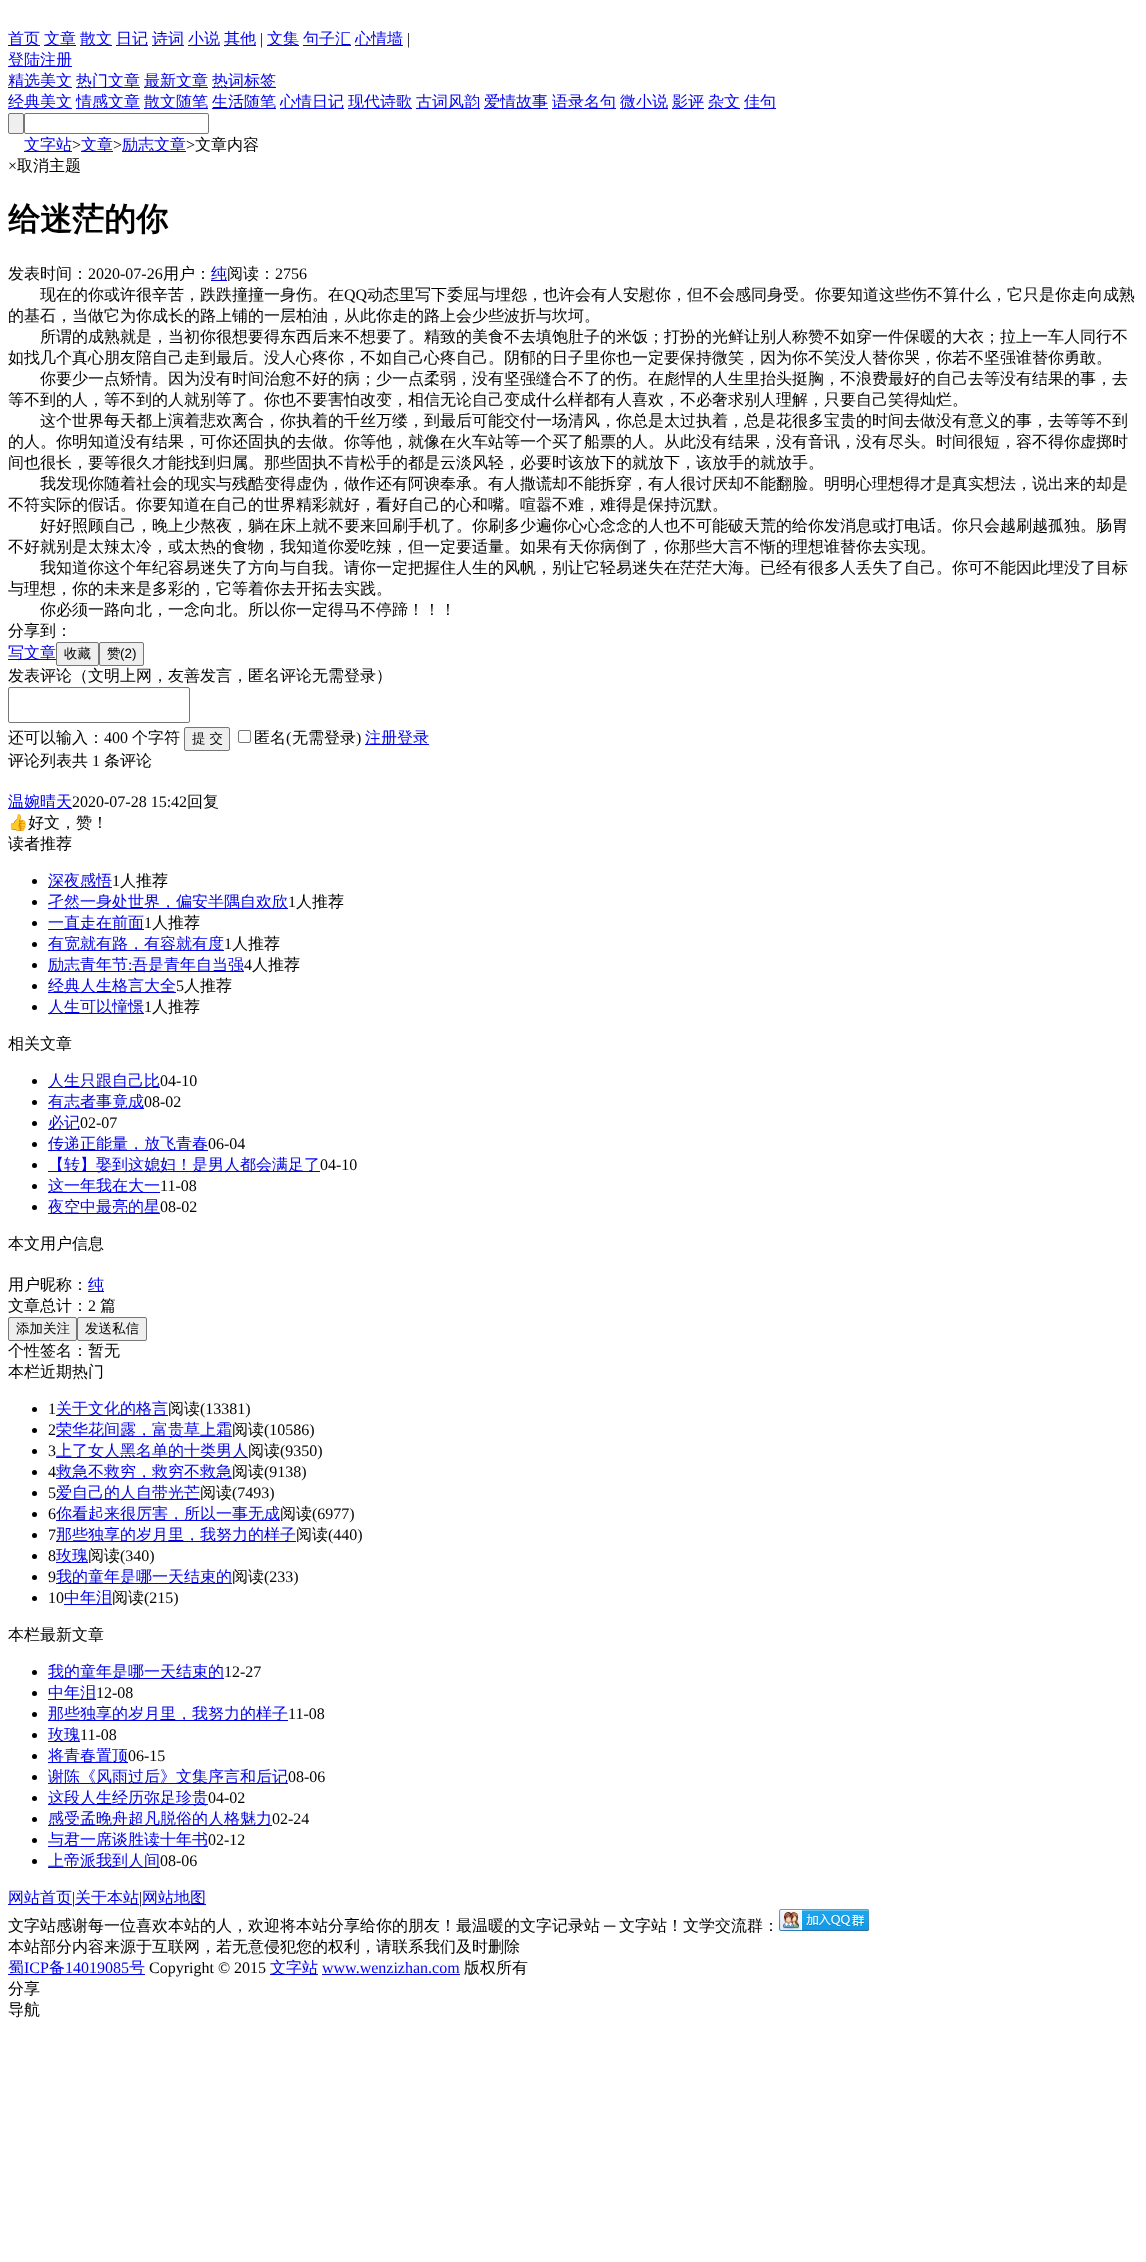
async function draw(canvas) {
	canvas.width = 1146;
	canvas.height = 2262;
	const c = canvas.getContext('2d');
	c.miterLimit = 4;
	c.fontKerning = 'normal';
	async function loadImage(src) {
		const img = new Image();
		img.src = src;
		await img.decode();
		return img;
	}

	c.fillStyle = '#fff';
	c.fillRect(0, 0, 1146, 2262);
	c.fillStyle = '#00e';
	c.fillRect(8, 45, 32, 1);
	c.font = '500 16px WenQuanYi Zen Hei';
	c.fillText('首页', 8, 44);
	c.fillRect(44, 45, 32, 1);
	c.fillText('文章', 44, 44);
	c.fillRect(80, 45, 32, 1);
	c.fillText('散文', 80, 44);
	c.fillRect(116, 45, 32, 1);
	c.fillText('日记', 116, 44);
	c.fillRect(152, 45, 32, 1);
	c.fillText('诗词', 152, 44);
	c.fillRect(188, 45, 32, 1);
	c.fillText('小说', 188, 44);
	c.fillRect(224, 45, 32, 1);
	c.fillText('其他', 224, 44);
	c.font = '16px Liberation Serif';
	c.fillStyle = '#000';
	c.fillText('|', 260, 44);
	c.fillStyle = '#00e';
	c.fillRect(267, 45, 32, 1);
	c.font = '500 16px WenQuanYi Zen Hei';
	c.fillText('文集', 267, 44);
	c.fillRect(303, 45, 48, 1);
	c.fillText('句子汇', 303, 44);
	c.fillRect(355, 45, 48, 1);
	c.fillText('心情墙', 355, 44);
	c.font = '16px Liberation Serif';
	c.fillStyle = '#000';
	c.fillText('|', 407, 44);
	c.fillStyle = '#00e';
	c.fillRect(8, 66, 64, 1);
	c.font = '500 16px WenQuanYi Zen Hei';
	c.fillText('登陆注册', 8, 65);
	c.fillRect(8, 87, 64, 1);
	c.fillText('精选美文', 8, 86);
	c.fillRect(76, 87, 64, 1);
	c.fillText('热门文章', 76, 86);
	c.fillRect(144, 87, 64, 1);
	c.fillText('最新文章', 144, 86);
	c.fillRect(212, 87, 64, 1);
	c.fillText('热词标签', 212, 86);
	c.fillRect(8, 108, 64, 1);
	c.fillText('经典美文', 8, 107);
	c.fillRect(76, 108, 64, 1);
	c.fillText('情感文章', 76, 107);
	c.fillRect(144, 108, 64, 1);
	c.fillText('散文随笔', 144, 107);
	c.fillRect(212, 108, 64, 1);
	c.fillText('生活随笔', 212, 107);
	c.fillRect(280, 108, 64, 1);
	c.fillText('心情日记', 280, 107);
	c.fillRect(348, 108, 64, 1);
	c.fillText('现代诗歌', 348, 107);
	c.fillRect(416, 108, 64, 1);
	c.fillText('古词风韵', 416, 107);
	c.fillRect(484, 108, 64, 1);
	c.fillText('爱情故事', 484, 107);
	c.fillRect(552, 108, 64, 1);
	c.fillText('语录名句', 552, 107);
	c.fillRect(620, 108, 48, 1);
	c.fillText('微小说', 620, 107);
	c.fillRect(672, 108, 32, 1);
	c.fillText('影评', 672, 107);
	c.fillRect(708, 108, 32, 1);
	c.fillText('杂文', 708, 107);
	c.fillRect(744, 108, 32, 1);
	c.fillText('佳句', 744, 107);
	c.fillStyle = '#efefef';
	c.beginPath();
	c.roundRect(8.5, 113.5, 15, 20, 1.5);
	c.fill();
	c.strokeStyle = '#767676';
	c.stroke();
	c.beginPath();
	c.roundRect(24.5, 113.5, 184, 20, 1.5);
	c.stroke();
	c.fillStyle = '#00e';
	c.fillRect(24, 151, 48, 1);
	c.fillText('文字站', 24, 150);
	c.font = '16px Liberation Serif';
	c.fillStyle = '#000';
	c.fillText('>', 72, 150);
	c.fillStyle = '#00e';
	c.fillRect(81, 151, 32, 1);
	c.font = '500 16px WenQuanYi Zen Hei';
	c.fillText('文章', 81, 150);
	c.font = '16px Liberation Serif';
	c.fillStyle = '#000';
	c.fillText('>', 113, 150);
	c.fillStyle = '#00e';
	c.fillRect(122, 151, 64, 1);
	c.font = '500 16px WenQuanYi Zen Hei';
	c.fillText('励志文章', 122, 150);
	c.font = '16px Liberation Serif';
	c.fillStyle = '#000';
	c.fillText('>', 186, 150);
	c.font = '500 16px WenQuanYi Zen Hei';
	c.fillText('文章内容', 195, 150);
	c.font = '16px Liberation Serif';
	c.fillText('×', 8, 171);
	c.font = '500 16px WenQuanYi Zen Hei';
	c.fillText('取消主题', 17, 171);
	c.font = 'bold 32px WenQuanYi Zen Hei';
	c.fillText('给迷茫的你', 8, 230);
	c.font = '500 16px WenQuanYi Zen Hei';
	c.fillText('发表时间：', 8, 279);
	c.font = '16px Liberation Serif';
	c.fillText('2020-07-26', 88, 279);
	c.font = '500 16px WenQuanYi Zen Hei';
	c.fillText('用户：', 163, 279);
	c.fillStyle = '#00e';
	c.fillRect(211, 280, 16, 1);
	c.fillText('纯', 211, 279);
	c.fillStyle = '#000';
	c.fillText('阅读：', 227, 279);
	c.font = '16px Liberation Serif';
	c.fillText('2756', 275, 279);
	c.font = '500 16px WenQuanYi Zen Hei';
	c.fillText('现在的你或许很辛苦，跌跌撞撞一身伤。在', 40, 300);
	c.font = '16px Liberation Serif';
	c.fillText('QQ', 344, 300);
	c.font = '500 16px WenQuanYi Zen Hei';
	for (const [text, x, y] of [
		['动态里写下委屈与埋怨，也许会有人安慰你，但不会感同身受。你要知道这些伤不算什么，它只是你走向成熟', 367, 300],
		['的基石，当做它为你成长的路上铺的一层柏油，从此你走的路上会少些波折与坎坷。', 8, 321],
		['所谓的成熟就是，当初你很想要得东西后来不想要了。精致的美食不去填饱肚子的米饭；打扮的光鲜让别人称赞不如穿一件保暖的大衣；拉上一车人同行不', 40, 342],
		['如找几个真心朋友陪自己走到最后。没人心疼你，不如自己心疼自己。阴郁的日子里你也一定要保持微笑，因为你不笑没人替你哭，你若不坚强谁替你勇敢。', 8, 363],
		['你要少一点矫情。因为没有时间治愈不好的病；少一点柔弱，没有坚强缝合不了的伤。在彪悍的人生里抬头挺胸，不浪费最好的自己去等没有结果的事，去', 40, 384],
		['等不到的人，等不到的人就别等了。你也不要害怕改变，相信无论自己变成什么样都有人喜欢，不必奢求别人理解，只要自己笑得灿烂。', 8, 405],
		['这个世界每天都上演着悲欢离合，你执着的千丝万缕，到最后可能交付一场清风，你总是太过执着，总是花很多宝贵的时间去做没有意义的事，去等等不到', 40, 426],
		['的人。你明知道没有结果，可你还固执的去做。你等他，就像在火车站等一个买了船票的人。从此没有结果，没有音讯，没有尽头。时间很短，容不得你虚掷时', 8, 447],
		['间也很长，要等很久才能找到归属。那些固执不肯松手的都是云淡风轻，必要时该放下的就放下，该放手的就放手。', 8, 468],
		['我发现你随着社会的现实与残酷变得虚伪，做作还有阿谀奉承。有人撒谎却不能拆穿，有人很讨厌却不能翻脸。明明心理想得才是真实想法，说出来的却是', 40, 489],
		['不符实际的假话。你要知道在自己的世界精彩就好，看好自己的心和嘴。喧嚣不难，难得是保持沉默。', 8, 510],
		['好好照顾自己，晚上少熬夜，躺在床上就不要来回刷手机了。你刷多少遍你心心念念的人也不可能破天荒的给你发消息或打电话。你只会越刷越孤独。肠胃', 40, 531],
		['不好就别是太辣太冷，或太热的食物，我知道你爱吃辣，但一定要适量。如果有天你病倒了，你那些大言不惭的理想谁替你去实现。', 8, 552],
		['我知道你这个年纪容易迷失了方向与自我。请你一定把握住人生的风帆，别让它轻易迷失在茫茫大海。已经有很多人丢失了自己。你可不能因此埋没了目标', 40, 573],
		['与理想，你的未来是多彩的，它等着你去开拓去实践。', 8, 594],
		['你必须一路向北，一念向北。所以你一定得马不停蹄！！！', 40, 615],
		['分享到：', 8, 636],
	]) {
		c.fillText(text, x, y);
	}
	c.fillStyle = '#00e';
	c.fillRect(8, 659, 48, 1);
	c.fillText('写文章', 8, 658);
	c.fillStyle = '#efefef';
	c.beginPath();
	c.roundRect(56.5, 642.5, 42, 23, 1.5);
	c.fill();
	c.stroke();
	c.font = '500 13.5px WenQuanYi Zen Hei';
	c.fillStyle = '#000';
	c.fillText('收藏', 64, 658);
	c.fillStyle = '#efefef';
	c.beginPath();
	c.roundRect(99.5, 642.5, 44, 23, 1.5);
	c.fill();
	c.stroke();
	c.fillStyle = '#000';
	c.fillText('赞', 107, 658);
	c.font = '13.5px Liberation Sans';
	c.fillText('(2)', 120, 658);
	c.font = '500 16px WenQuanYi Zen Hei';
	c.fillText('发表评论（文明上网，友善发言，匿名评论无需登录）', 8, 681);
	c.beginPath();
	c.roundRect(8.5, 687.5, 181, 35, 1.5);
	c.stroke();
	c.fillText('还可以输入：', 8, 743);
	c.font = '16px Liberation Serif';
	c.fillText('400', 104, 743);
	c.font = '500 16px WenQuanYi Zen Hei';
	c.fillText('个字符', 132, 743);
	c.fillStyle = '#efefef';
	c.beginPath();
	c.roundRect(184.5, 727.5, 45, 23, 1.5);
	c.fill();
	c.stroke();
	c.font = '500 13.5px WenQuanYi Zen Hei';
	c.fillStyle = '#000';
	c.fillText('提 交', 192, 743);
	c.beginPath();
	c.roundRect(238.5, 730.5, 12, 12, 1.5);
	c.stroke();
	c.font = '500 16px WenQuanYi Zen Hei';
	c.fillText('匿名', 254, 743);
	c.font = '16px Liberation Serif';
	c.fillText('(', 286, 743);
	c.font = '500 16px WenQuanYi Zen Hei';
	c.fillText('无需登录', 292, 743);
	c.font = '16px Liberation Serif';
	c.fillText(')', 356, 743);
	c.fillStyle = '#00e';
	c.fillRect(365, 744, 64, 1);
	c.font = '500 16px WenQuanYi Zen Hei';
	c.fillText('注册登录', 365, 743);
	c.fillStyle = '#000';
	c.fillText('评论列表共', 8, 766);
	c.font = '16px Liberation Serif';
	c.fillText('1', 92, 766);
	c.font = '500 16px WenQuanYi Zen Hei';
	c.fillText('条评论', 104, 766);
	c.fillStyle = '#00e';
	c.fillRect(8, 808, 64, 1);
	c.fillText('温婉晴天', 8, 807);
	c.font = '16px Liberation Serif';
	c.fillStyle = '#000';
	c.fillText('2020-07-28 15:42', 72, 807);
	c.font = '500 16px WenQuanYi Zen Hei';
	c.fillText('回复', 187, 807);
	c.font = '16px Noto Color Emoji';
	c.fillText('👍', 8, 828);
	c.font = '500 16px WenQuanYi Zen Hei';
	c.fillText('好文，赞！', 28, 828);
	c.fillText('读者推荐', 8, 849);
	c.beginPath();
	c.arc(34.5, 881.5, 2.5, 0, 2 * Math.PI);
	c.fill();
	c.fillStyle = '#00e';
	c.fillRect(48, 887, 64, 1);
	c.fillText('深夜感悟', 48, 886);
	c.font = '16px Liberation Serif';
	c.fillStyle = '#000';
	c.fillText('1', 112, 886);
	c.font = '500 16px WenQuanYi Zen Hei';
	c.fillText('人推荐', 120, 886);
	c.beginPath();
	c.arc(34.5, 902.5, 2.5, 0, 2 * Math.PI);
	c.fill();
	c.fillStyle = '#00e';
	c.fillRect(48, 908, 240, 1);
	c.fillText('孑然一身处世界，偏安半隅自欢欣', 48, 907);
	c.font = '16px Liberation Serif';
	c.fillStyle = '#000';
	c.fillText('1', 288, 907);
	c.font = '500 16px WenQuanYi Zen Hei';
	c.fillText('人推荐', 296, 907);
	c.beginPath();
	c.arc(34.5, 923.5, 2.5, 0, 2 * Math.PI);
	c.fill();
	c.fillStyle = '#00e';
	c.fillRect(48, 929, 96, 1);
	c.fillText('一直走在前面', 48, 928);
	c.font = '16px Liberation Serif';
	c.fillStyle = '#000';
	c.fillText('1', 144, 928);
	c.font = '500 16px WenQuanYi Zen Hei';
	c.fillText('人推荐', 152, 928);
	c.beginPath();
	c.arc(34.5, 944.5, 2.5, 0, 2 * Math.PI);
	c.fill();
	c.fillStyle = '#00e';
	c.fillRect(48, 950, 176, 1);
	c.fillText('有宽就有路，有容就有度', 48, 949);
	c.font = '16px Liberation Serif';
	c.fillStyle = '#000';
	c.fillText('1', 224, 949);
	c.font = '500 16px WenQuanYi Zen Hei';
	c.fillText('人推荐', 232, 949);
	c.beginPath();
	c.arc(34.5, 965.5, 2.5, 0, 2 * Math.PI);
	c.fill();
	c.fillStyle = '#00e';
	c.fillRect(48, 971, 196, 1);
	c.fillText('励志青年节', 48, 970);
	c.font = '16px Liberation Serif';
	c.fillText(':', 128, 970);
	c.font = '500 16px WenQuanYi Zen Hei';
	c.fillText('吾是青年自当强', 132, 970);
	c.font = '16px Liberation Serif';
	c.fillStyle = '#000';
	c.fillText('4', 244, 970);
	c.font = '500 16px WenQuanYi Zen Hei';
	c.fillText('人推荐', 252, 970);
	c.beginPath();
	c.arc(34.5, 986.5, 2.5, 0, 2 * Math.PI);
	c.fill();
	c.fillStyle = '#00e';
	c.fillRect(48, 992, 128, 1);
	c.fillText('经典人生格言大全', 48, 991);
	c.font = '16px Liberation Serif';
	c.fillStyle = '#000';
	c.fillText('5', 176, 991);
	c.font = '500 16px WenQuanYi Zen Hei';
	c.fillText('人推荐', 184, 991);
	c.beginPath();
	c.arc(34.5, 1007.5, 2.5, 0, 2 * Math.PI);
	c.fill();
	c.fillStyle = '#00e';
	c.fillRect(48, 1013, 96, 1);
	c.fillText('人生可以憧憬', 48, 1012);
	c.font = '16px Liberation Serif';
	c.fillStyle = '#000';
	c.fillText('1', 144, 1012);
	c.font = '500 16px WenQuanYi Zen Hei';
	c.fillText('人推荐', 152, 1012);
	c.fillText('相关文章', 8, 1049);
	c.beginPath();
	c.arc(34.5, 1081.5, 2.5, 0, 2 * Math.PI);
	c.fill();
	c.fillStyle = '#00e';
	c.fillRect(48, 1087, 112, 1);
	c.fillText('人生只跟自己比', 48, 1086);
	c.font = '16px Liberation Serif';
	c.fillStyle = '#000';
	c.fillText('04-10', 160, 1086);
	c.beginPath();
	c.arc(34.5, 1102.5, 2.5, 0, 2 * Math.PI);
	c.fill();
	c.fillStyle = '#00e';
	c.fillRect(48, 1108, 96, 1);
	c.font = '500 16px WenQuanYi Zen Hei';
	c.fillText('有志者事竟成', 48, 1107);
	c.font = '16px Liberation Serif';
	c.fillStyle = '#000';
	c.fillText('08-02', 144, 1107);
	c.beginPath();
	c.arc(34.5, 1123.5, 2.5, 0, 2 * Math.PI);
	c.fill();
	c.fillStyle = '#00e';
	c.fillRect(48, 1129, 32, 1);
	c.font = '500 16px WenQuanYi Zen Hei';
	c.fillText('必记', 48, 1128);
	c.font = '16px Liberation Serif';
	c.fillStyle = '#000';
	c.fillText('02-07', 80, 1128);
	c.beginPath();
	c.arc(34.5, 1144.5, 2.5, 0, 2 * Math.PI);
	c.fill();
	c.fillStyle = '#00e';
	c.fillRect(48, 1150, 160, 1);
	c.font = '500 16px WenQuanYi Zen Hei';
	c.fillText('传递正能量，放飞青春', 48, 1149);
	c.font = '16px Liberation Serif';
	c.fillStyle = '#000';
	c.fillText('06-04', 208, 1149);
	c.beginPath();
	c.arc(34.5, 1165.5, 2.5, 0, 2 * Math.PI);
	c.fill();
	c.fillStyle = '#00e';
	c.fillRect(48, 1171, 272, 1);
	c.font = '500 16px WenQuanYi Zen Hei';
	c.fillText('【转】娶到这媳妇！是男人都会满足了', 48, 1170);
	c.font = '16px Liberation Serif';
	c.fillStyle = '#000';
	c.fillText('04-10', 320, 1170);
	c.beginPath();
	c.arc(34.5, 1186.5, 2.5, 0, 2 * Math.PI);
	c.fill();
	c.fillStyle = '#00e';
	c.fillRect(48, 1192, 112, 1);
	c.font = '500 16px WenQuanYi Zen Hei';
	c.fillText('这一年我在大一', 48, 1191);
	c.font = '16px Liberation Serif';
	c.fillStyle = '#000';
	c.fillText('11-08', 160, 1191);
	c.beginPath();
	c.arc(34.5, 1207.5, 2.5, 0, 2 * Math.PI);
	c.fill();
	c.fillStyle = '#00e';
	c.fillRect(48, 1213, 112, 1);
	c.font = '500 16px WenQuanYi Zen Hei';
	c.fillText('夜空中最亮的星', 48, 1212);
	c.font = '16px Liberation Serif';
	c.fillStyle = '#000';
	c.fillText('08-02', 160, 1212);
	c.font = '500 16px WenQuanYi Zen Hei';
	c.fillText('本文用户信息', 8, 1249);
	c.fillText('用户昵称：', 8, 1290);
	c.fillStyle = '#00e';
	c.fillRect(88, 1291, 16, 1);
	c.fillText('纯', 88, 1290);
	c.fillStyle = '#000';
	c.fillText('文章总计：', 8, 1311);
	c.font = '16px Liberation Serif';
	c.fillText('2', 88, 1311);
	c.font = '500 16px WenQuanYi Zen Hei';
	c.fillText('篇', 100, 1311);
	c.fillStyle = '#efefef';
	c.beginPath();
	c.roundRect(8.5, 1317.5, 68, 23, 1.5);
	c.fill();
	c.stroke();
	c.font = '500 13.5px WenQuanYi Zen Hei';
	c.fillStyle = '#000';
	c.fillText('添加关注', 16, 1333);
	c.fillStyle = '#efefef';
	c.beginPath();
	c.roundRect(77.5, 1317.5, 69, 23, 1.5);
	c.fill();
	c.stroke();
	c.fillStyle = '#000';
	c.fillText('发送私信', 85, 1333);
	c.font = '500 16px WenQuanYi Zen Hei';
	c.fillText('个性签名：暂无', 8, 1356);
	c.fillText('本栏近期热门', 8, 1377);
	c.beginPath();
	c.arc(34.5, 1409.5, 2.5, 0, 2 * Math.PI);
	c.fill();
	c.font = '16px Liberation Serif';
	c.fillText('1', 48, 1414);
	c.fillStyle = '#00e';
	c.fillRect(56, 1415, 112, 1);
	c.font = '500 16px WenQuanYi Zen Hei';
	c.fillText('关于文化的格言', 56, 1414);
	c.fillStyle = '#000';
	c.fillText('阅读', 168, 1414);
	c.font = '16px Liberation Serif';
	c.fillText('(13381)', 200, 1414);
	c.beginPath();
	c.arc(34.5, 1430.5, 2.5, 0, 2 * Math.PI);
	c.fill();
	c.fillText('2', 48, 1435);
	c.fillStyle = '#00e';
	c.fillRect(56, 1436, 176, 1);
	c.font = '500 16px WenQuanYi Zen Hei';
	c.fillText('荣华花间露，富贵草上霜', 56, 1435);
	c.fillStyle = '#000';
	c.fillText('阅读', 232, 1435);
	c.font = '16px Liberation Serif';
	c.fillText('(10586)', 264, 1435);
	c.beginPath();
	c.arc(34.5, 1451.5, 2.5, 0, 2 * Math.PI);
	c.fill();
	c.fillText('3', 48, 1456);
	c.fillStyle = '#00e';
	c.fillRect(56, 1457, 192, 1);
	c.font = '500 16px WenQuanYi Zen Hei';
	c.fillText('上了女人黑名单的十类男人', 56, 1456);
	c.fillStyle = '#000';
	c.fillText('阅读', 248, 1456);
	c.font = '16px Liberation Serif';
	c.fillText('(9350)', 280, 1456);
	c.beginPath();
	c.arc(34.5, 1472.5, 2.5, 0, 2 * Math.PI);
	c.fill();
	c.fillText('4', 48, 1477);
	c.fillStyle = '#00e';
	c.fillRect(56, 1478, 176, 1);
	c.font = '500 16px WenQuanYi Zen Hei';
	c.fillText('救急不救穷，救穷不救急', 56, 1477);
	c.fillStyle = '#000';
	c.fillText('阅读', 232, 1477);
	c.font = '16px Liberation Serif';
	c.fillText('(9138)', 264, 1477);
	c.beginPath();
	c.arc(34.5, 1493.5, 2.5, 0, 2 * Math.PI);
	c.fill();
	c.fillText('5', 48, 1498);
	c.fillStyle = '#00e';
	c.fillRect(56, 1499, 144, 1);
	c.font = '500 16px WenQuanYi Zen Hei';
	c.fillText('爱自己的人自带光芒', 56, 1498);
	c.fillStyle = '#000';
	c.fillText('阅读', 200, 1498);
	c.font = '16px Liberation Serif';
	c.fillText('(7493)', 232, 1498);
	c.beginPath();
	c.arc(34.5, 1514.5, 2.5, 0, 2 * Math.PI);
	c.fill();
	c.fillText('6', 48, 1519);
	c.fillStyle = '#00e';
	c.fillRect(56, 1520, 224, 1);
	c.font = '500 16px WenQuanYi Zen Hei';
	c.fillText('你看起来很厉害，所以一事无成', 56, 1519);
	c.fillStyle = '#000';
	c.fillText('阅读', 280, 1519);
	c.font = '16px Liberation Serif';
	c.fillText('(6977)', 312, 1519);
	c.beginPath();
	c.arc(34.5, 1535.5, 2.5, 0, 2 * Math.PI);
	c.fill();
	c.fillText('7', 48, 1540);
	c.fillStyle = '#00e';
	c.fillRect(56, 1541, 240, 1);
	c.font = '500 16px WenQuanYi Zen Hei';
	c.fillText('那些独享的岁月里，我努力的样子', 56, 1540);
	c.fillStyle = '#000';
	c.fillText('阅读', 296, 1540);
	c.font = '16px Liberation Serif';
	c.fillText('(440)', 328, 1540);
	c.beginPath();
	c.arc(34.5, 1556.5, 2.5, 0, 2 * Math.PI);
	c.fill();
	c.fillText('8', 48, 1561);
	c.fillStyle = '#00e';
	c.fillRect(56, 1562, 32, 1);
	c.font = '500 16px WenQuanYi Zen Hei';
	c.fillText('玫瑰', 56, 1561);
	c.fillStyle = '#000';
	c.fillText('阅读', 88, 1561);
	c.font = '16px Liberation Serif';
	c.fillText('(340)', 120, 1561);
	c.beginPath();
	c.arc(34.5, 1577.5, 2.5, 0, 2 * Math.PI);
	c.fill();
	c.fillText('9', 48, 1582);
	c.fillStyle = '#00e';
	c.fillRect(56, 1583, 176, 1);
	c.font = '500 16px WenQuanYi Zen Hei';
	c.fillText('我的童年是哪一天结束的', 56, 1582);
	c.fillStyle = '#000';
	c.fillText('阅读', 232, 1582);
	c.font = '16px Liberation Serif';
	c.fillText('(233)', 264, 1582);
	c.beginPath();
	c.arc(34.5, 1598.5, 2.5, 0, 2 * Math.PI);
	c.fill();
	c.fillText('10', 48, 1603);
	c.fillStyle = '#00e';
	c.fillRect(64, 1604, 48, 1);
	c.font = '500 16px WenQuanYi Zen Hei';
	c.fillText('中年泪', 64, 1603);
	c.fillStyle = '#000';
	c.fillText('阅读', 112, 1603);
	c.font = '16px Liberation Serif';
	c.fillText('(215)', 144, 1603);
	c.font = '500 16px WenQuanYi Zen Hei';
	c.fillText('本栏最新文章', 8, 1640);
	c.beginPath();
	c.arc(34.5, 1672.5, 2.5, 0, 2 * Math.PI);
	c.fill();
	c.fillStyle = '#00e';
	c.fillRect(48, 1678, 176, 1);
	c.fillText('我的童年是哪一天结束的', 48, 1677);
	c.font = '16px Liberation Serif';
	c.fillStyle = '#000';
	c.fillText('12-27', 224, 1677);
	c.beginPath();
	c.arc(34.5, 1693.5, 2.5, 0, 2 * Math.PI);
	c.fill();
	c.fillStyle = '#00e';
	c.fillRect(48, 1699, 48, 1);
	c.font = '500 16px WenQuanYi Zen Hei';
	c.fillText('中年泪', 48, 1698);
	c.font = '16px Liberation Serif';
	c.fillStyle = '#000';
	c.fillText('12-08', 96, 1698);
	c.beginPath();
	c.arc(34.5, 1714.5, 2.5, 0, 2 * Math.PI);
	c.fill();
	c.fillStyle = '#00e';
	c.fillRect(48, 1720, 240, 1);
	c.font = '500 16px WenQuanYi Zen Hei';
	c.fillText('那些独享的岁月里，我努力的样子', 48, 1719);
	c.font = '16px Liberation Serif';
	c.fillStyle = '#000';
	c.fillText('11-08', 288, 1719);
	c.beginPath();
	c.arc(34.5, 1735.5, 2.5, 0, 2 * Math.PI);
	c.fill();
	c.fillStyle = '#00e';
	c.fillRect(48, 1741, 32, 1);
	c.font = '500 16px WenQuanYi Zen Hei';
	c.fillText('玫瑰', 48, 1740);
	c.font = '16px Liberation Serif';
	c.fillStyle = '#000';
	c.fillText('11-08', 80, 1740);
	c.beginPath();
	c.arc(34.5, 1756.5, 2.5, 0, 2 * Math.PI);
	c.fill();
	c.fillStyle = '#00e';
	c.fillRect(48, 1762, 80, 1);
	c.font = '500 16px WenQuanYi Zen Hei';
	c.fillText('将青春置顶', 48, 1761);
	c.font = '16px Liberation Serif';
	c.fillStyle = '#000';
	c.fillText('06-15', 128, 1761);
	c.beginPath();
	c.arc(34.5, 1777.5, 2.5, 0, 2 * Math.PI);
	c.fill();
	c.fillStyle = '#00e';
	c.fillRect(48, 1783, 240, 1);
	c.font = '500 16px WenQuanYi Zen Hei';
	c.fillText('谢陈《风雨过后》文集序言和后记', 48, 1782);
	c.font = '16px Liberation Serif';
	c.fillStyle = '#000';
	c.fillText('08-06', 288, 1782);
	c.beginPath();
	c.arc(34.5, 1798.5, 2.5, 0, 2 * Math.PI);
	c.fill();
	c.fillStyle = '#00e';
	c.fillRect(48, 1804, 160, 1);
	c.font = '500 16px WenQuanYi Zen Hei';
	c.fillText('这段人生经历弥足珍贵', 48, 1803);
	c.font = '16px Liberation Serif';
	c.fillStyle = '#000';
	c.fillText('04-02', 208, 1803);
	c.beginPath();
	c.arc(34.5, 1819.5, 2.5, 0, 2 * Math.PI);
	c.fill();
	c.fillStyle = '#00e';
	c.fillRect(48, 1825, 224, 1);
	c.font = '500 16px WenQuanYi Zen Hei';
	c.fillText('感受孟晚舟超凡脱俗的人格魅力', 48, 1824);
	c.font = '16px Liberation Serif';
	c.fillStyle = '#000';
	c.fillText('02-24', 272, 1824);
	c.beginPath();
	c.arc(34.5, 1840.5, 2.5, 0, 2 * Math.PI);
	c.fill();
	c.fillStyle = '#00e';
	c.fillRect(48, 1846, 160, 1);
	c.font = '500 16px WenQuanYi Zen Hei';
	c.fillText('与君一席谈胜读十年书', 48, 1845);
	c.font = '16px Liberation Serif';
	c.fillStyle = '#000';
	c.fillText('02-12', 208, 1845);
	c.beginPath();
	c.arc(34.5, 1861.5, 2.5, 0, 2 * Math.PI);
	c.fill();
	c.fillStyle = '#00e';
	c.fillRect(48, 1867, 112, 1);
	c.font = '500 16px WenQuanYi Zen Hei';
	c.fillText('上帝派我到人间', 48, 1866);
	c.font = '16px Liberation Serif';
	c.fillStyle = '#000';
	c.fillText('08-06', 160, 1866);
	c.fillStyle = '#00e';
	c.fillRect(8, 1904, 64, 1);
	c.font = '500 16px WenQuanYi Zen Hei';
	c.fillText('网站首页', 8, 1903);
	c.font = '16px Liberation Serif';
	c.fillStyle = '#000';
	c.fillText('|', 72, 1903);
	c.fillStyle = '#00e';
	c.fillRect(75, 1904, 64, 1);
	c.font = '500 16px WenQuanYi Zen Hei';
	c.fillText('关于本站', 75, 1903);
	c.font = '16px Liberation Serif';
	c.fillStyle = '#000';
	c.fillText('|', 139, 1903);
	c.fillStyle = '#00e';
	c.fillRect(142, 1904, 64, 1);
	c.font = '500 16px WenQuanYi Zen Hei';
	c.fillText('网站地图', 142, 1903);
	c.fillStyle = '#000';
	c.fillText('文字站感谢每一位喜欢本站的人，欢迎将本站分享给你的朋友！最温暖的文字记录站', 8, 1931);
	c.font = '16px Liberation Serif';
	c.fillText('─', 604, 1931);
	c.font = '500 16px WenQuanYi Zen Hei';
	c.fillText('文字站！文学交流群：', 619, 1931);
	c.drawImage(await loadImage('img1.png'), 779, 1909, 90, 22);
	c.fillText('本站部分内容来源于互联网，若无意侵犯您的权利，请联系我们及时删除', 8, 1952);
	c.fillStyle = '#00e';
	c.fillRect(8, 1974, 137, 1);
	c.fillText('蜀', 8, 1973);
	c.font = '16px Liberation Serif';
	c.fillText('ICP', 24, 1973);
	c.font = '500 16px WenQuanYi Zen Hei';
	c.fillText('备', 49, 1973);
	c.font = '16px Liberation Serif';
	c.fillText('14019085', 65, 1973);
	c.font = '500 16px WenQuanYi Zen Hei';
	c.fillText('号', 129, 1973);
	c.font = '16px Liberation Serif';
	c.fillStyle = '#000';
	c.fillText('Copyright © 2015', 149, 1973);
	c.fillStyle = '#00e';
	c.fillRect(270, 1974, 48, 1);
	c.font = '500 16px WenQuanYi Zen Hei';
	c.fillText('文字站', 270, 1973);
	c.font = '16px Liberation Serif';
	c.fillText('www.wenzizhan.com', 322, 1973);
	c.fillRect(322, 1974, 138, 1);
	c.font = '500 16px WenQuanYi Zen Hei';
	c.fillStyle = '#000';
	for (const [text, x, y] of [
		['版权所有', 464, 1973],
		['分享', 8, 1994],
		['导航', 8, 2015],
	]) {
		c.fillText(text, x, y);
	}
}

draw(document.querySelector('canvas'));
